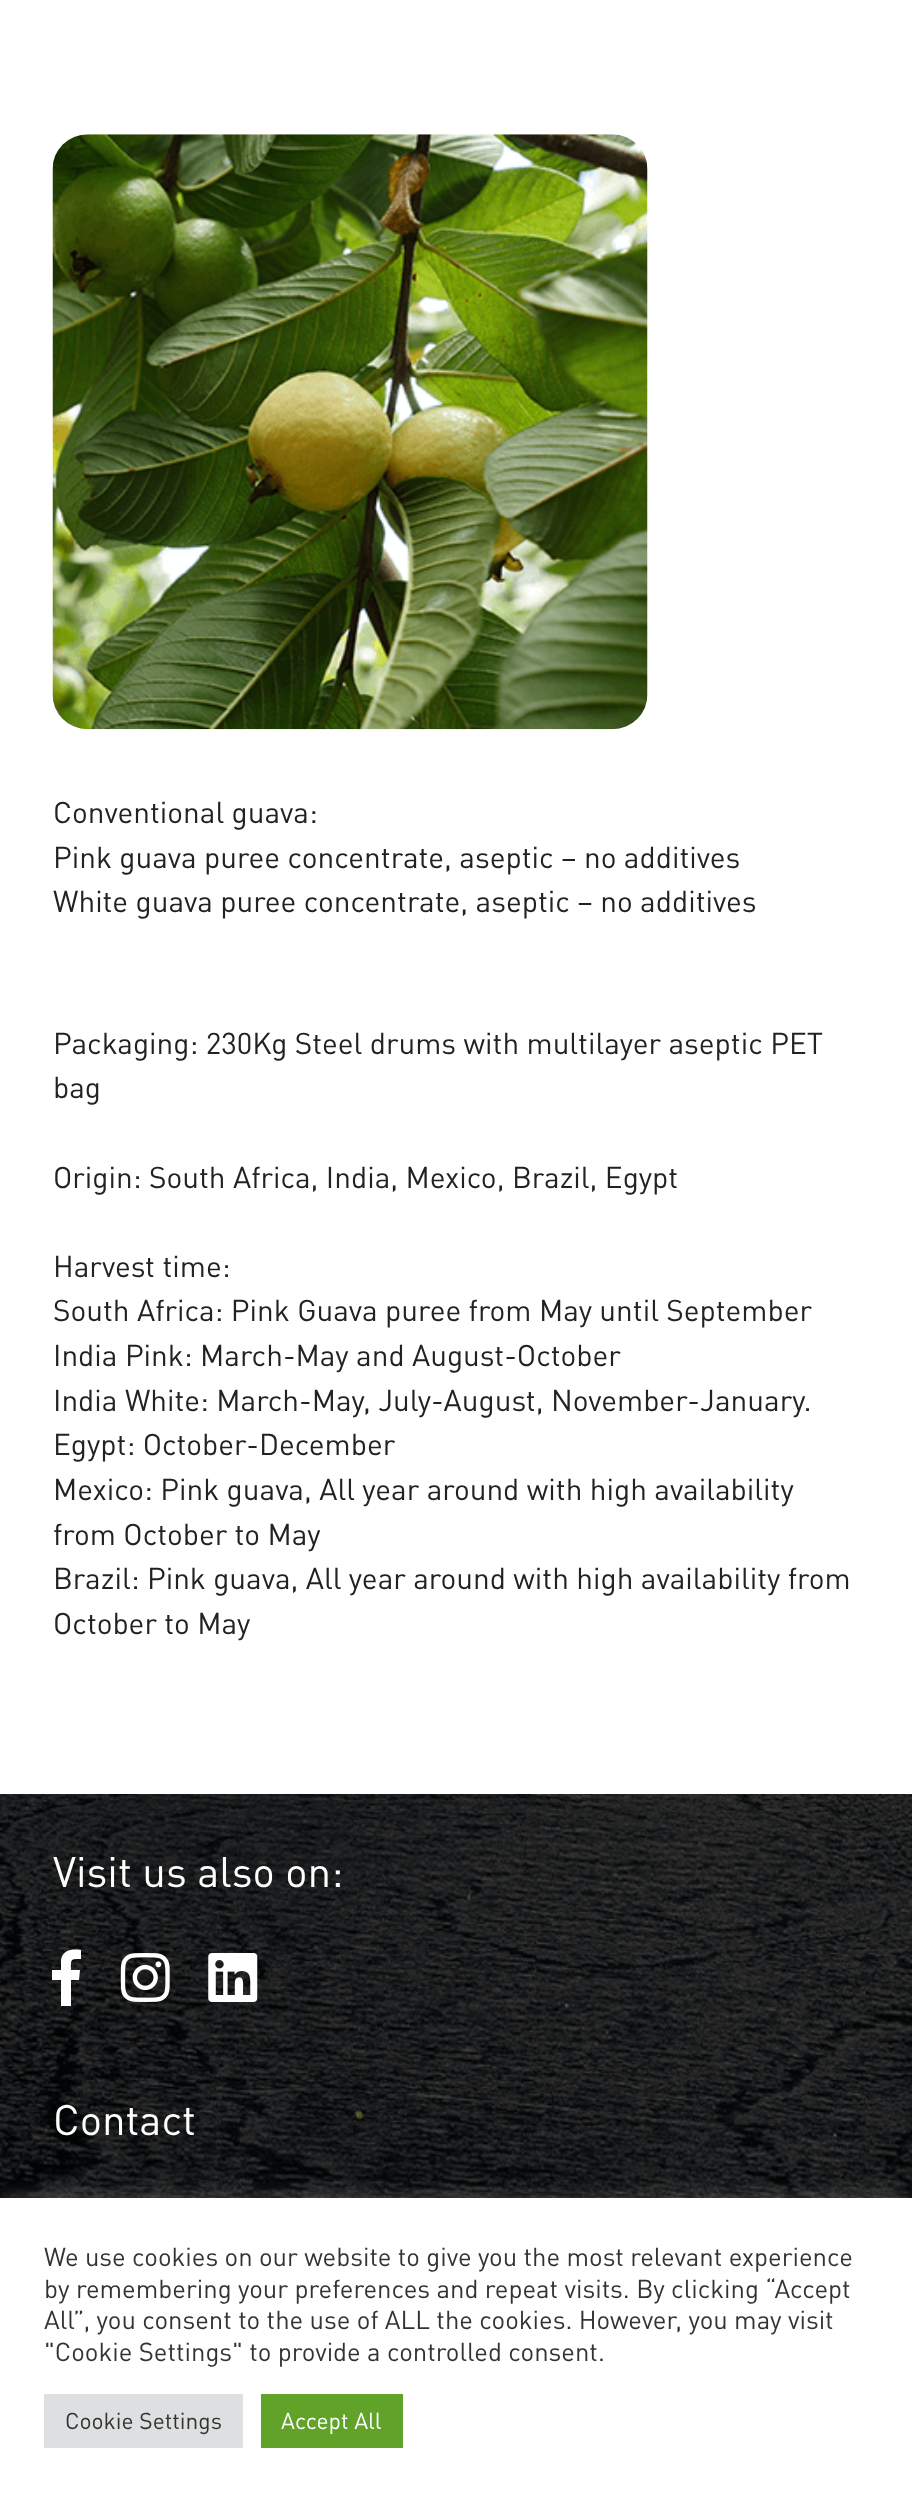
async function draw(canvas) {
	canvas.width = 912;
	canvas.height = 2500;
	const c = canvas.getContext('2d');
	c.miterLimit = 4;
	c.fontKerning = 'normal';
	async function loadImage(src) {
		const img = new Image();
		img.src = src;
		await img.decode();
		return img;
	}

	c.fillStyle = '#fff';
	c.fillRect(0, 0, 912, 2500);
	c.drawImage(await loadImage('img1.png'), 52, 134, 596, 596);
	c.font = '29.75px DIN';
	c.fillStyle = '#222';
	for (const [text, x, y] of [
		['Conventional guava:', 53, 823],
		['Pink guava puree concentrate, aseptic – no additives', 53, 868],
		['White guava puree concentrate, aseptic – no additives', 53, 912],
		['Packaging: 230Kg Steel drums with multilayer aseptic PET', 53, 1054],
		['bag', 53, 1098],
		['Origin: South Africa, India, Mexico, Brazil, Egypt', 53, 1188],
		['Harvest time:', 53, 1277],
		['South Africa: Pink Guava puree from May until September', 53, 1321],
		['India Pink: March-May and August-October', 53, 1366],
		['India White: March-May, July-August, November-January.', 53, 1411],
		['Egypt: October-December', 53, 1455],
		['Mexico: Pink guava, All year around with high availability', 53, 1500],
		['from October to May', 53, 1545],
		['Brazil: Pink guava, All year around with high availability from', 53, 1589],
		['October to May', 53, 1634],
	]) {
		c.fillText(text, x, y);
	}
	c.drawImage(await loadImage('img2.png'), 0, 1794, 912, 404);
	c.font = '42px DIN';
	c.fillStyle = '#fff';
	c.fillText('Visit us also on:', 53, 1887);
	c.beginPath();
	c.moveTo(61, 2006);
	c.lineTo(61, 1980);
	c.lineTo(52, 1980);
	c.lineTo(52, 1970);
	c.lineTo(61, 1970);
	c.lineTo(61, 1960);
	c.bezierCurveTo(63, 1949, 73, 1949, 81, 1950);
	c.lineTo(81, 1959);
	c.bezierCurveTo(70, 1959, 71, 1959, 71, 1970);
	c.lineTo(80, 1970);
	c.lineTo(79, 1980);
	c.lineTo(71, 1980);
	c.lineTo(71, 2006);
	c.closePath();
	c.fill();
	c.drawImage(await loadImage('img3.png'), 120, 1953, 50, 49);
	c.drawImage(await loadImage('img4.png'), 208, 1953, 50, 49);
	c.fillText('Contact', 53, 2135);
	c.fillStyle = '#acabab4d';
	c.filter = 'blur(9px)';
	c.beginPath();
	c.rect(0, 2196, 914, 303);
	c.fill();
	c.filter = 'none';
	c.fillStyle = '#fff';
	c.fillRect(0, 2198, 912, 302);
	c.font = '25.7px DIN';
	c.fillStyle = '#333';
	for (const [text, x, y] of [
		['We use cookies on our website to give you the most relevant experience', 44, 2266],
		['by remembering your preferences and repeat visits. By clicking “Accept', 44, 2298],
		['All”, you consent to the use of ALL the cookies. However, you may visit', 44, 2329],
		['"Cookie Settings" to provide a controlled consent.', 44, 2361],
	]) {
		c.fillText(text, x, y);
	}
	c.fillStyle = '#dedfe0';
	c.fillRect(44, 2394, 199, 54);
	c.font = '22.75px DIN';
	c.fillStyle = '#333';
	c.fillText('Cookie Settings', 65, 2429);
	c.fillStyle = '#61a229';
	c.fillRect(261, 2394, 142, 54);
	c.fillStyle = '#fff';
	c.fillText('Accept All', 281, 2429);
}

draw(document.querySelector('canvas'));
